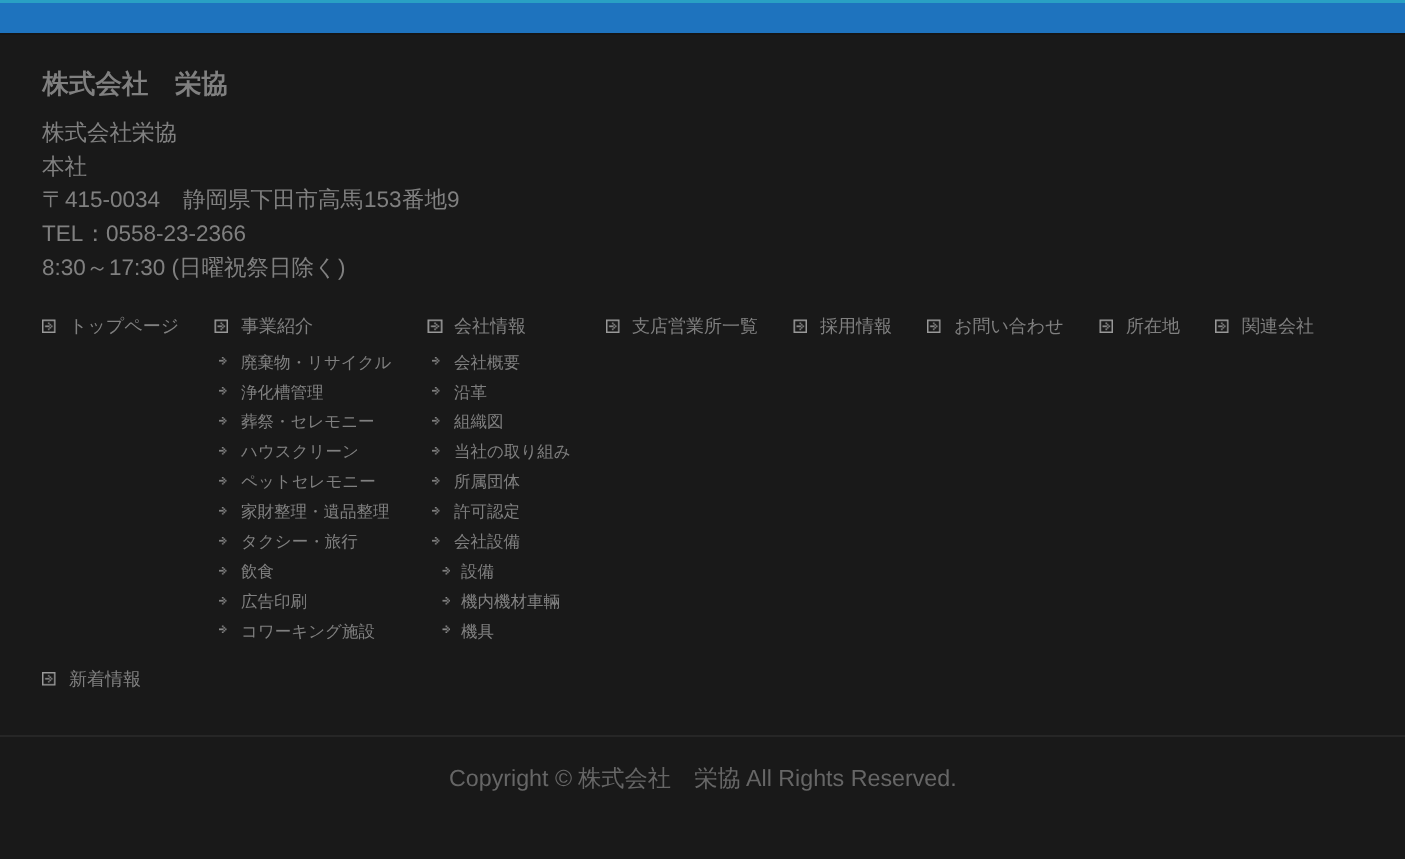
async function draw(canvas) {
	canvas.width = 1405;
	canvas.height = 859;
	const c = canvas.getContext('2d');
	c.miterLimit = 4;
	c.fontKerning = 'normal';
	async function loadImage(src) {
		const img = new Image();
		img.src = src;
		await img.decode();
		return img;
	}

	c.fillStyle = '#191919';
	c.fillRect(0, 0, 1405, 859);
	for (const [x, y, w, h, color] of [
		[0, 3, 1405, 30, '#1e73be'],
		[0, 0, 1405, 3, '#29a0c4'],
		[0, 33, 1405, 2, '#151515'],
	]) {
		c.fillStyle = color;
		c.fillRect(x, y, w, h);
	}
	c.font = 'bold 26.5px WenQuanYi Zen Hei';
	c.fillStyle = '#808080';
	c.fillText('株式会社　栄協', 42, 93);
	c.font = '500 22.5px WenQuanYi Zen Hei';
	for (const [text, x, y] of [
		['株式会社栄協', 42, 140],
		['本社', 42, 174],
		['〒', 42, 207],
	]) {
		c.fillText(text, x, y);
	}
	c.font = '22.5px Liberation Sans';
	c.fillText('415-0034', 65, 207);
	c.font = '500 22.5px WenQuanYi Zen Hei';
	c.fillText('静岡県下田市高馬', 183, 207);
	c.font = '22.5px Liberation Sans';
	c.fillText('153', 364, 207);
	c.font = '500 22.5px WenQuanYi Zen Hei';
	c.fillText('番地', 402, 207);
	c.font = '22.5px Liberation Sans';
	c.fillText('9', 447, 207);
	c.fillText('TEL', 42, 241);
	c.font = '500 22.5px WenQuanYi Zen Hei';
	c.fillText('：', 84, 241);
	c.font = '22.5px Liberation Sans';
	c.fillText('0558-23-2366', 106, 241);
	c.fillText('8:30', 42, 275);
	c.font = '500 22.5px WenQuanYi Zen Hei';
	c.fillText('～', 86, 275);
	c.font = '22.5px Liberation Sans';
	c.fillText('17:30 (', 109, 275);
	c.font = '500 22.5px WenQuanYi Zen Hei';
	c.fillText('日曜祝祭日除く', 179, 275);
	c.font = '22.5px Liberation Sans';
	c.fillText(')', 338, 275);
	c.drawImage(await loadImage('img1.png'), 42, 319, 14, 14);
	c.font = '500 18px WenQuanYi Zen Hei';
	c.fillText('トップページ', 69, 332);
	c.drawImage(await loadImage('img2.png'), 214, 319, 14, 14);
	c.fillText('事業紹介', 241, 332);
	c.drawImage(await loadImage('img3.png'), 219, 357, 8, 8);
	c.font = '500 16.5px WenQuanYi Zen Hei';
	c.fillText('廃棄物・リサイクル', 241, 368);
	c.drawImage(await loadImage('img3.png'), 219, 387, 8, 8);
	c.fillText('浄化槽管理', 241, 398);
	c.drawImage(await loadImage('img3.png'), 219, 417, 8, 8);
	c.fillText('葬祭・セレモニー', 241, 427);
	c.drawImage(await loadImage('img3.png'), 219, 447, 8, 8);
	c.fillText('ハウスクリーン', 241, 457);
	c.drawImage(await loadImage('img3.png'), 219, 477, 8, 8);
	c.fillText('ペットセレモニー', 241, 487);
	c.drawImage(await loadImage('img3.png'), 219, 507, 8, 8);
	c.fillText('家財整理・遺品整理', 241, 517);
	c.drawImage(await loadImage('img3.png'), 219, 537, 8, 8);
	c.fillText('タクシー・旅行', 241, 547);
	c.drawImage(await loadImage('img3.png'), 219, 567, 8, 8);
	c.fillText('飲食', 241, 577);
	c.drawImage(await loadImage('img3.png'), 219, 597, 8, 8);
	c.fillText('広告印刷', 241, 607);
	c.drawImage(await loadImage('img4.png'), 219, 625, 8, 8);
	c.fillText('コワーキング施設', 241, 637);
	c.drawImage(await loadImage('img5.png'), 427, 319, 16, 14);
	c.font = '500 18px WenQuanYi Zen Hei';
	c.fillText('会社情報', 454, 332);
	c.drawImage(await loadImage('img6.png'), 432, 357, 8, 8);
	c.font = '500 16.5px WenQuanYi Zen Hei';
	c.fillText('会社概要', 454, 368);
	c.drawImage(await loadImage('img6.png'), 432, 387, 8, 8);
	c.fillText('沿革', 454, 398);
	c.drawImage(await loadImage('img6.png'), 432, 417, 8, 8);
	c.fillText('組織図', 454, 427);
	c.drawImage(await loadImage('img6.png'), 432, 447, 8, 8);
	c.fillText('当社の取り組み', 454, 457);
	c.drawImage(await loadImage('img6.png'), 432, 477, 8, 8);
	c.fillText('所属団体', 454, 487);
	c.drawImage(await loadImage('img6.png'), 432, 507, 8, 8);
	c.fillText('許可認定', 454, 517);
	c.drawImage(await loadImage('img6.png'), 432, 537, 8, 8);
	c.fillText('会社設備', 454, 547);
	c.drawImage(await loadImage('img7.png'), 442, 567, 8, 8);
	c.fillText('設備', 461, 577);
	c.drawImage(await loadImage('img7.png'), 442, 597, 8, 8);
	c.fillText('機内機材車輛', 461, 607);
	c.drawImage(await loadImage('img8.png'), 442, 625, 8, 8);
	c.fillText('機具', 461, 637);
	c.drawImage(await loadImage('img1.png'), 606, 319, 14, 14);
	c.font = '500 18px WenQuanYi Zen Hei';
	c.fillText('支店営業所一覧', 632, 332);
	c.drawImage(await loadImage('img2.png'), 793, 319, 14, 14);
	c.fillText('採用情報', 820, 332);
	c.drawImage(await loadImage('img1.png'), 927, 319, 14, 14);
	c.fillText('お問い合わせ', 954, 332);
	c.drawImage(await loadImage('img2.png'), 1099, 319, 14, 14);
	c.fillText('所在地', 1126, 332);
	c.drawImage(await loadImage('img9.png'), 1215, 319, 14, 14);
	c.fillText('関連会社', 1242, 332);
	c.drawImage(await loadImage('img10.png'), 42, 672, 14, 14);
	c.fillText('新着情報', 69, 685);
	c.fillStyle = '#262626';
	c.fillRect(0, 735, 1405, 2);
	c.font = '23.25px Liberation Sans';
	c.fillStyle = '#666';
	c.fillText('Copyright ©', 449, 786);
	c.font = '500 23.25px WenQuanYi Zen Hei';
	c.fillText('株式会社　栄協', 578, 786);
	c.font = '23.25px Liberation Sans';
	c.fillText('All Rights Reserved.', 746, 786);
}

draw(document.querySelector('canvas'));
